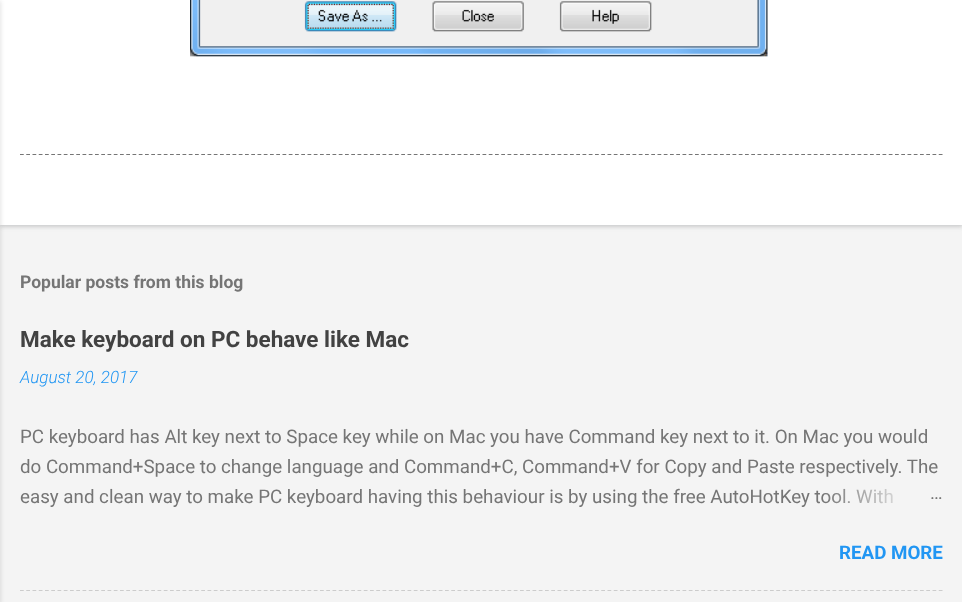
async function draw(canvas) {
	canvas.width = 962;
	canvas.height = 602;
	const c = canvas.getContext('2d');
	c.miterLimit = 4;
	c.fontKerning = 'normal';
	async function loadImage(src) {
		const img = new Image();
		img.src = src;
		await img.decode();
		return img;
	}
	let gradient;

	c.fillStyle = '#f4f4f4';
	c.fillRect(0, 0, 962, 602);
	c.fillStyle = '#3c40434d';
	c.filter = 'blur(2.5px)';
	c.beginPath();
	c.rect(0, -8, 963, 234);
	c.fill();
	c.filter = 'none';
	c.fillStyle = '#fff';
	c.fillRect(0, 0, 962, 225);
	c.fillStyle = '#0000001a';
	c.filter = 'blur(2px)';
	c.beginPath();
	c.rect(-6, 1, 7, 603);
	c.fill();
	c.filter = 'none';
	c.drawImage(await loadImage('img1.png'), 190, 0, 578, 57);
	c.beginPath();
	c.moveTo(20, 154.5);
	c.lineTo(942.5, 154.5);
	c.strokeStyle = '#757575';
	c.lineWidth = 1.2;
	c.setLineDash([3.75, 2.5]);
	c.stroke();
	c.font = 'bold 17.5px Roboto';
	c.fillStyle = '#757575';
	c.fillText('Popular posts from this blog', 20, 288);
	c.font = 'bold 22.5px Roboto';
	c.fillStyle = '#424242';
	c.fillText('Make keyboard on PC behave like Mac', 20, 347);
	c.font = 'italic 300 17px Roboto';
	c.fillStyle = '#2196f3';
	c.fillText('August 20, 2017', 20, 383);
	c.font = '18.75px Roboto';
	c.fillStyle = '#757575';
	for (const [text, x, y] of [
		['PC keyboard has Alt key next to Space key while on Mac you have Command key next to it. On Mac you would', 20, 443],
		['do Command+Space to change language and Command+C, Command+V for Copy and Paste respectively. The', 20, 473],
		['easy and clean way to make PC keyboard having this behaviour is by using the free AutoHotKey tool. With', 20, 503],
	]) {
		c.fillText(text, x, y);
	}
	gradient = c.createLinearGradient(943, 498, 823, 498);
	gradient.addColorStop(0, '#f4f4f4');
	gradient.addColorStop(0.2, '#f4f4f4');
	gradient.addColorStop(1, '#f4f4f400');
	c.fillStyle = gradient;
	c.fillRect(825, 488, 68, 16);
	c.fillStyle = '#757575';
	c.fillText('…', 930, 499);
	c.font = 'bold 18.75px Roboto';
	c.fillStyle = '#2196f3';
	c.fillText('READ MORE', 839, 559);
	c.beginPath();
	c.moveTo(20, 590.5);
	c.lineTo(942.5, 590.5);
	c.strokeStyle = '#ccc';
	c.stroke();
}

draw(document.querySelector('canvas'));
